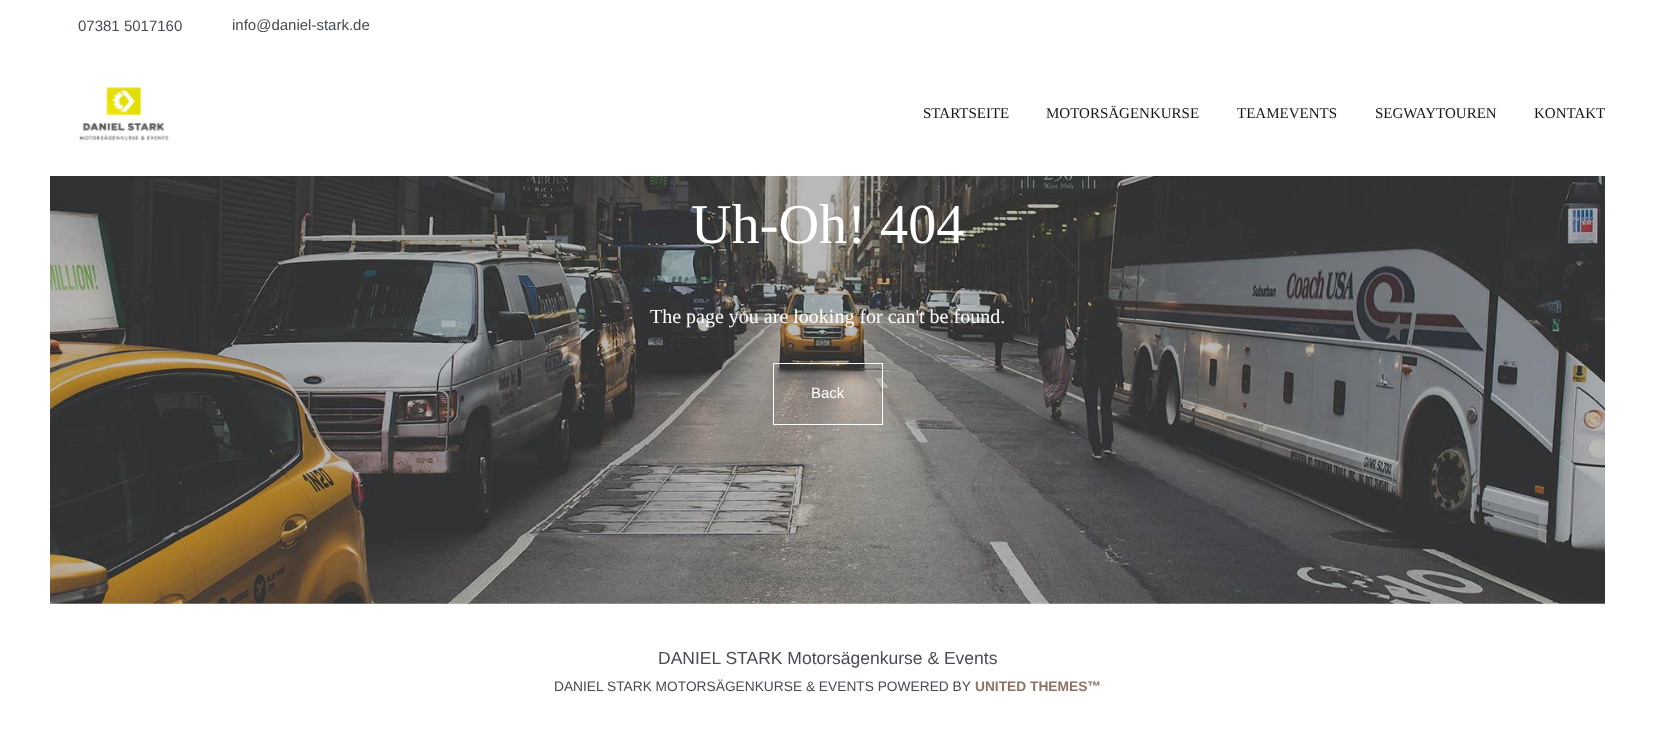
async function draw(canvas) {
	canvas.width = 1655;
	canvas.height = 746;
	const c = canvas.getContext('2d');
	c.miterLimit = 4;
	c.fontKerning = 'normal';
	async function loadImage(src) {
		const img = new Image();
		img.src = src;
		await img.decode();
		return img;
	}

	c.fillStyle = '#fff';
	c.fillRect(0, 0, 1655, 746);
	c.font = '15px Liberation Sans';
	c.fillStyle = '#474b54';
	c.fillText('07381 5017160', 78, 31);
	c.fillText('info@daniel-stark.de', 232, 30);
	c.drawImage(await loadImage('img1.png'), 79, 87, 90, 54);
	c.font = '15px Liberation Serif';
	c.fillStyle = '#151515';
	for (const [text, x, y] of [
		['STARTSEITE', 923, 118],
		['MOTORSÄGENKURSE', 1046, 118],
		['TEAMEVENTS', 1237, 118],
		['SEGWAYTOUREN', 1375, 118],
		['KONTAKT', 1534, 118],
	]) {
		c.fillText(text, x, y);
	}
	c.drawImage(await loadImage('img2.png'), 50, 176, 1555, 428);
	c.font = '56.25px Liberation Serif';
	c.fillStyle = '#fff';
	c.fillText('Uh-Oh! 404', 691, 243);
	c.font = '20px Liberation Serif';
	c.fillText('The page you are looking for can\'t be found.', 650, 323);
	c.strokeStyle = '#fff';
	c.strokeRect(773.5, 363.5, 109, 61);
	c.font = '15px Liberation Sans';
	c.fillText('Back', 811, 398);
	c.font = '17.5px Liberation Sans';
	c.fillStyle = '#474b54';
	c.fillText('DANIEL STARK Motorsägenkurse & Events', 658, 664);
	c.font = '13.75px Liberation Sans';
	c.fillText('DANIEL STARK MOTORSÄGENKURSE & EVENTS POWERED BY', 554, 691);
	c.font = 'bold 13.75px Liberation Sans';
	c.fillStyle = '#8e7364';
	c.fillText('UNITED THEMES™', 975, 691);
}

draw(document.querySelector('canvas'));
